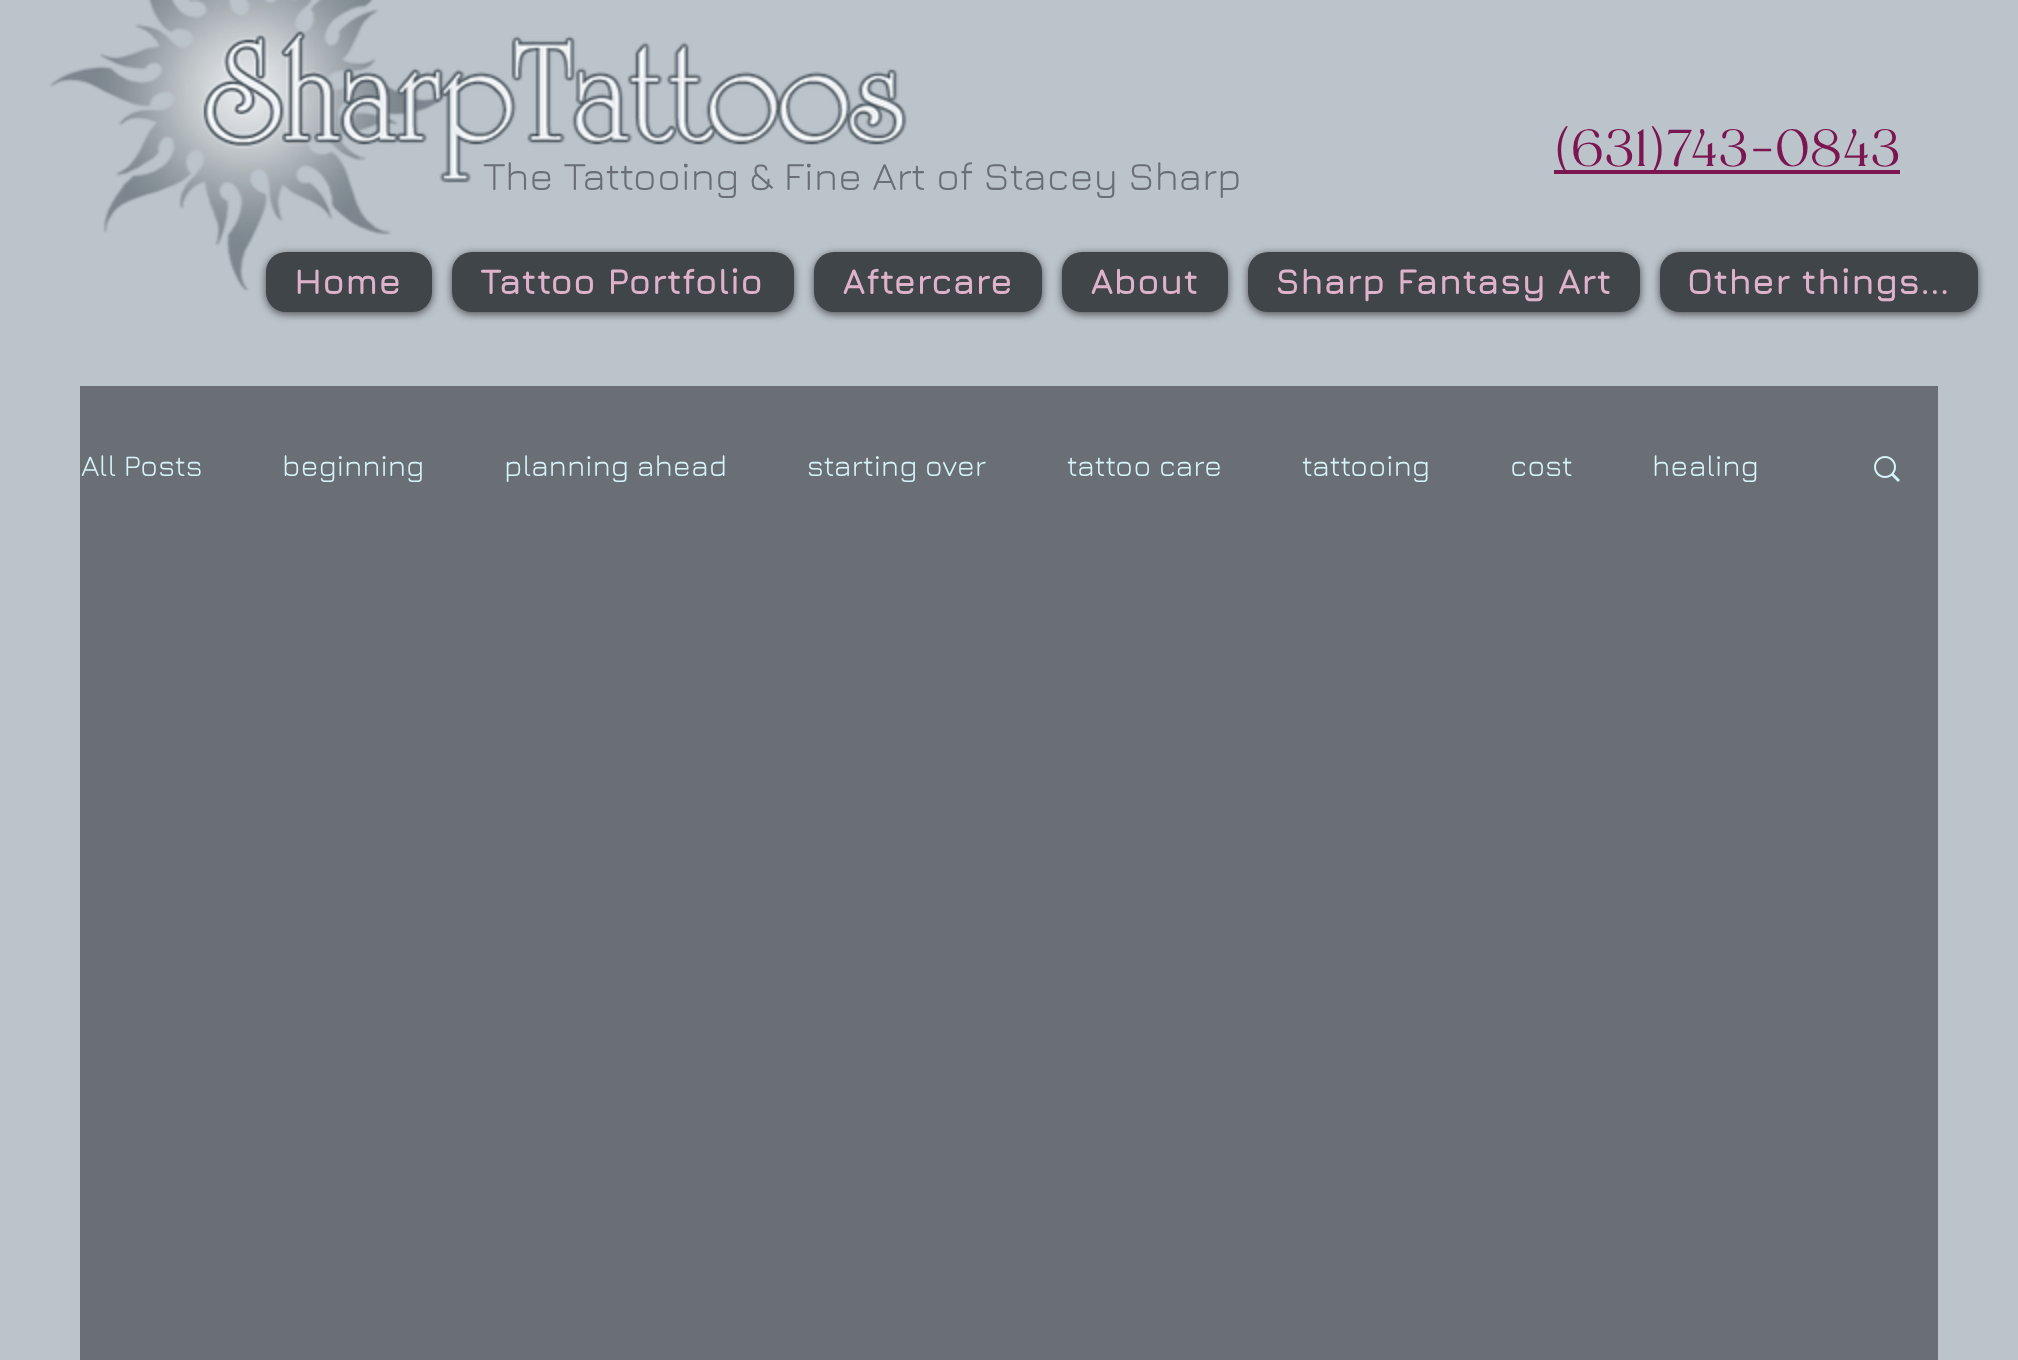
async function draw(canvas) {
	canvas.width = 2018;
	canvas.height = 1360;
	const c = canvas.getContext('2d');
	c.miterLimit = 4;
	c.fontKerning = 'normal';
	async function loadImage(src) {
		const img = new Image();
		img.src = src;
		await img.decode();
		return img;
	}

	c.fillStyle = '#bcc4cb';
	c.fillRect(0, 0, 2018, 1360);
	c.font = '40px Jura';
	c.fillStyle = '#696f75';
	c.fillText('The Tattooing & Fine Art of Stacey Sharp', 483, 190);
	c.fillStyle = '#00000099';
	c.filter = 'blur(4px)';
	c.beginPath();
	c.roundRect(266, 254, 166, 60, 20);
	c.fill();
	c.filter = 'none';
	c.fillStyle = '#3f4549';
	c.beginPath();
	c.roundRect(266, 252, 166, 60, 20);
	c.fill();
	c.font = 'bold 36px Jura';
	c.fillStyle = '#dfb2cc';
	c.fillText('Home', 294, 294);
	c.fillStyle = '#00000099';
	c.filter = 'blur(4px)';
	c.beginPath();
	c.roundRect(452, 254, 342, 60, 20);
	c.fill();
	c.filter = 'none';
	c.fillStyle = '#3f4549';
	c.beginPath();
	c.roundRect(452, 252, 342, 60, 20);
	c.fill();
	c.fillStyle = '#dfb2cc';
	c.fillText('Tattoo Portfolio', 480, 294);
	c.fillStyle = '#00000099';
	c.filter = 'blur(4px)';
	c.beginPath();
	c.roundRect(814, 254, 228, 60, 20);
	c.fill();
	c.filter = 'none';
	c.fillStyle = '#3f4549';
	c.beginPath();
	c.roundRect(814, 252, 228, 60, 20);
	c.fill();
	c.fillStyle = '#dfb2cc';
	c.fillText('Aftercare', 842, 294);
	c.drawImage(await loadImage('img1.png'), 50, 0, 857, 291);
	c.fillStyle = '#7b1651';
	c.fillRect(1554, 170, 346, 4);
	c.font = '50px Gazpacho';
	c.fillText('(631)743-0843', 1554, 166);
	c.fillStyle = '#00000099';
	c.filter = 'blur(4px)';
	c.beginPath();
	c.roundRect(1062, 254, 166, 60, 20);
	c.fill();
	c.filter = 'none';
	c.fillStyle = '#3f4549';
	c.beginPath();
	c.roundRect(1062, 252, 166, 60, 20);
	c.fill();
	c.font = 'bold 36px Jura';
	c.fillStyle = '#dfb2cc';
	c.fillText('About', 1090, 294);
	c.fillStyle = '#00000099';
	c.filter = 'blur(4px)';
	c.beginPath();
	c.roundRect(1248, 254, 392, 60, 20);
	c.fill();
	c.filter = 'none';
	c.fillStyle = '#3f4549';
	c.beginPath();
	c.roundRect(1248, 252, 392, 60, 20);
	c.fill();
	c.fillStyle = '#dfb2cc';
	c.fillText('Sharp Fantasy Art', 1275, 294);
	c.fillStyle = '#00000099';
	c.filter = 'blur(4px)';
	c.beginPath();
	c.roundRect(1660, 254, 318, 60, 20);
	c.fill();
	c.filter = 'none';
	c.fillStyle = '#3f4549';
	c.beginPath();
	c.roundRect(1660, 252, 318, 60, 20);
	c.fill();
	c.fillStyle = '#dfb2cc';
	c.fillText('Other things...', 1687, 294);
	c.fillStyle = '#696f75';
	c.fillRect(80, 386, 1858, 974);
	c.font = '30px Jura';
	c.fillStyle = '#d6f5fa';
	for (const [text, x, y] of [
		['All Posts', 81, 476],
		['beginning', 282, 476],
		['planning ahead', 504, 476],
		['starting over', 807, 476],
		['tattoo care', 1067, 476],
		['tattooing', 1302, 476],
		['cost', 1510, 476],
		['healing', 1652, 476],
	]) {
		c.fillText(text, x, y);
	}
	c.drawImage(await loadImage('img2.png'), 1874, 456, 26, 26);
}

draw(document.querySelector('canvas'));
